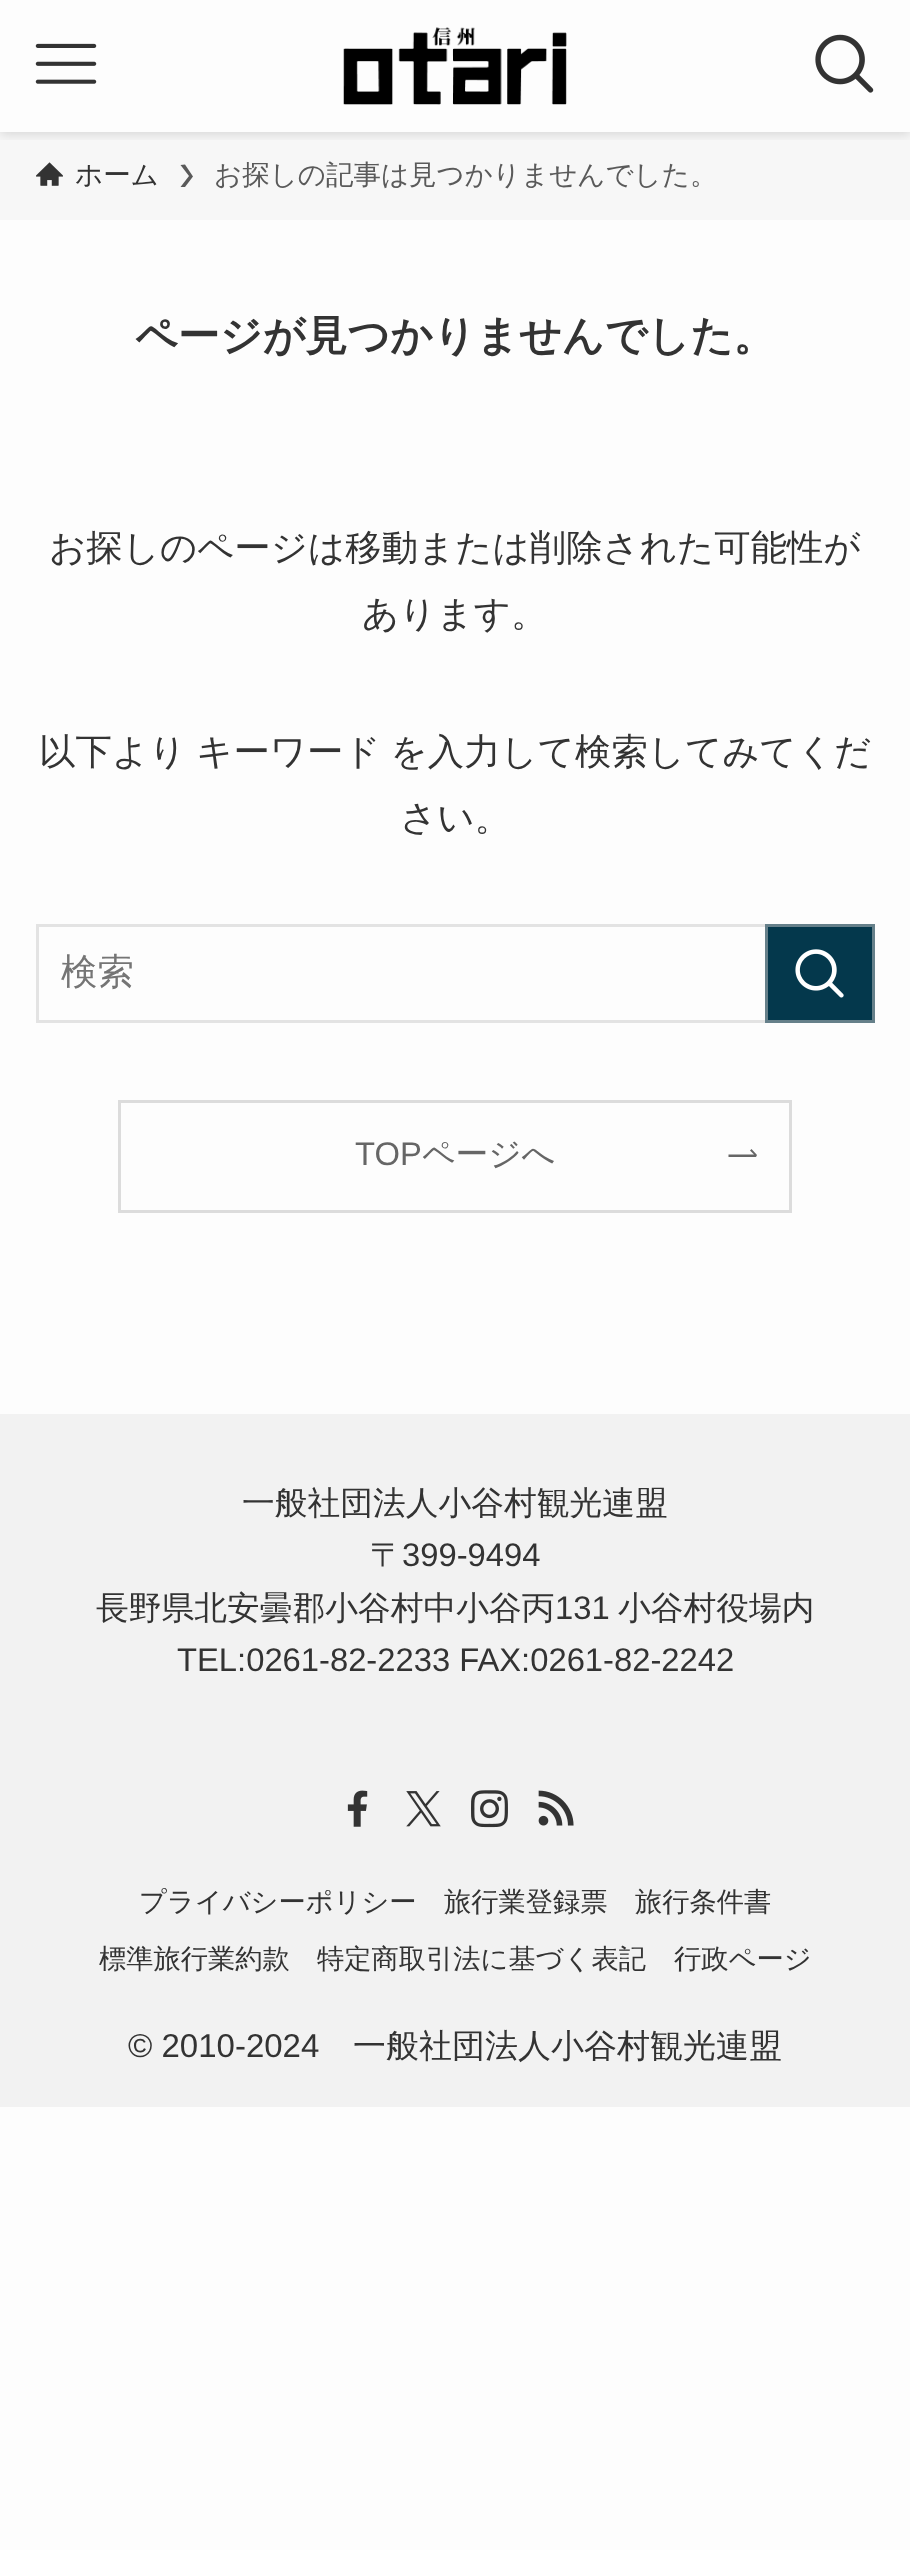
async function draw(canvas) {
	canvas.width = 910;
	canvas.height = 2550;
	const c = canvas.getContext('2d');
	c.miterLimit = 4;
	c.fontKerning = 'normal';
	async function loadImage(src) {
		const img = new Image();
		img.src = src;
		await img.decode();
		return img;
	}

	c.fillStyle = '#fdfdfd';
	c.fillRect(0, 0, 910, 2550);
	c.fillStyle = '#f7f7f7';
	c.fillRect(0, 132, 910, 88);
	c.save();
	c.beginPath();
	c.rect(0, 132, 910, 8);
	c.clip();
	c.fillStyle = '#0000001f';
	c.filter = 'blur(5.5px)';
	c.beginPath();
	c.rect(0, 3, 910, 132);
	c.fill();
	c.filter = 'none';
	c.restore();
	c.drawImage(await loadImage('img1.png'), 35, 43, 62, 41);
	c.drawImage(await loadImage('img2.png'), 343, 27, 224, 78);
	c.drawImage(await loadImage('img3.png'), 815, 34, 59, 59);
	c.drawImage(await loadImage('img4.png'), 36, 162, 27, 24);
	c.font = '500 27.5px WenQuanYi Zen Hei';
	c.fillStyle = '#333';
	c.fillText('ホーム', 75, 184);
	c.fillStyle = '#5a5a5a';
	c.beginPath();
	c.moveTo(185, 164.5);
	c.lineTo(180.5, 165);
	c.lineTo(189, 176);
	c.lineTo(180.5, 187);
	c.lineTo(185, 187);
	c.lineTo(193, 176.5);
	c.closePath();
	c.fill();
	c.fillText('お探しの記事は見つかりませんでした。', 214, 184);
	c.font = 'bold 41.9px WenQuanYi Zen Hei';
	c.fillStyle = '#333';
	c.fillText('ページが見つかりませんでした。', 135, 350);
	c.font = '500 36.4px WenQuanYi Zen Hei';
	c.fillText('お探しのページは移動または削除された可能性が', 49, 560);
	c.fillText('あります。', 362, 626);
	c.wordSpacing = '-1px';
	c.fillText('以下より キーワード を入力して検索してみてくだ', 39, 764);
	c.wordSpacing = '0px';
	c.fillText('さい。', 400, 830);
	c.strokeStyle = '#e3e3e3';
	c.lineWidth = 3;
	c.strokeRect(37.5, 925.5, 836, 96);
	c.fillStyle = '#757575';
	c.fillText('検索', 61, 984);
	c.fillStyle = '#04384c';
	c.beginPath();
	c.rect(766.5, 925.5, 107, 96);
	c.fill();
	c.strokeStyle = '#66808a';
	c.stroke();
	c.drawImage(await loadImage('img5.png'), 795, 949, 49, 49);
	c.strokeStyle = '#dcdcdc';
	c.strokeRect(119.5, 1101.5, 671, 110);
	c.font = '32.75px Liberation Sans';
	c.fillStyle = '#666';
	c.fillText('TOP', 355, 1165);
	c.font = '500 32.75px WenQuanYi Zen Hei';
	c.fillText('ページへ', 422, 1165);
	c.beginPath();
	c.moveTo(756, 1157);
	c.lineTo(728.5, 1157);
	c.lineTo(728.5, 1154.5);
	c.lineTo(754, 1154.5);
	c.lineTo(750, 1150.5);
	c.lineTo(751.5, 1149);
	c.lineTo(757, 1155);
	c.closePath();
	c.fill();
	c.fillStyle = '#f2f2f2';
	c.fillRect(0, 1414, 910, 693);
	c.fillStyle = '#333';
	c.fillText('一般社団法人小谷村観光連盟', 242, 1514);
	c.fillText('〒', 370, 1566);
	c.font = '32.75px Liberation Sans';
	c.fillText('399-9494', 402, 1566);
	c.font = '500 32.75px WenQuanYi Zen Hei';
	c.fillText('長野県北安曇郡小谷村中小谷丙', 96, 1619);
	c.font = '32.75px Liberation Sans';
	c.fillText('131', 555, 1619);
	c.font = '500 32.75px WenQuanYi Zen Hei';
	c.fillText('小谷村役場内', 618, 1619);
	c.font = '32.75px Liberation Sans';
	c.fillText('TEL:0261-82-2233 FAX:0261-82-2242', 177, 1671);
	c.drawImage(await loadImage('img6.png'), 347, 1790, 21, 37);
	c.drawImage(await loadImage('img7.png'), 406, 1791, 35, 36);
	c.drawImage(await loadImage('img8.png'), 471, 1790, 37, 38);
	c.drawImage(await loadImage('img9.png'), 538, 1790, 36, 36);
	c.font = '500 27.25px WenQuanYi Zen Hei';
	for (const [text, x, y] of [
		['プライバシーポリシー', 139, 1911],
		['旅行業登録票', 444, 1911],
		['旅行条件書', 635, 1911],
		['標準旅行業約款', 99, 1968],
		['特定商取引法に基づく表記', 317, 1968],
		['行政ページ', 674, 1968],
	]) {
		c.fillText(text, x, y);
	}
	c.font = '33px Liberation Sans';
	c.fillText('© 2010-2024', 128, 2057);
	c.font = '500 33px WenQuanYi Zen Hei';
	c.fillText('一般社団法人小谷村観光連盟', 353, 2057);
}

draw(document.querySelector('canvas'));
